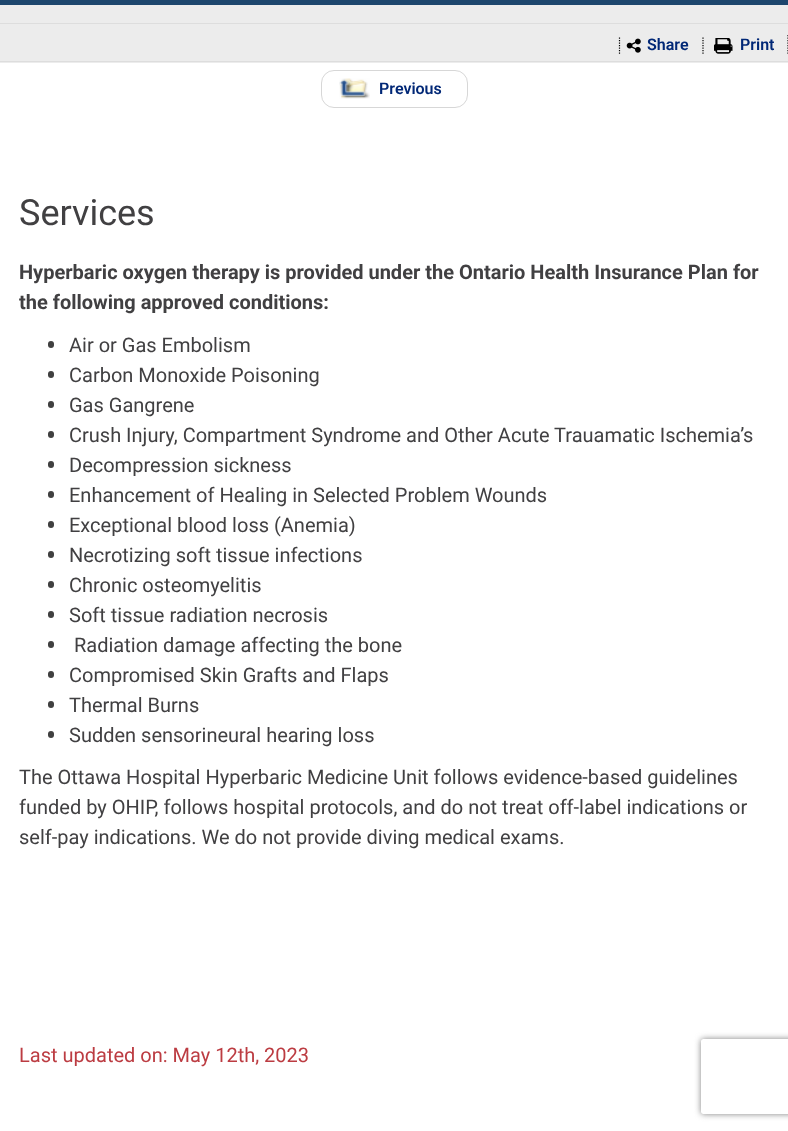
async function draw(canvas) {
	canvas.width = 788;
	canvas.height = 1131;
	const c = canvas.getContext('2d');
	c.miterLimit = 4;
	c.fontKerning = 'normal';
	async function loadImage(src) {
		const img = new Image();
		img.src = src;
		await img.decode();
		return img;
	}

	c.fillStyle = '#fff';
	c.fillRect(0, 0, 788, 1131);
	for (const [x, y, w, h, color] of [
		[0, 0, 788, 5, '#1d466d'],
		[0, 5, 788, 18, '#ececec'],
		[0, 23, 788, 1, '#ddd'],
		[0, 24, 788, 39, '#ececec'],
		[0, 61, 788, 1, '#ddd'],
	]) {
		c.fillStyle = color;
		c.fillRect(x, y, w, h);
	}
	c.drawImage(await loadImage('img1.png'), 626, 38, 15, 15);
	c.font = '600 16px Roboto';
	c.fillStyle = '#002776';
	c.fillText('Share', 647, 50);
	c.beginPath();
	c.moveTo(619.5, 37.5);
	c.lineTo(619.5, 54);
	c.strokeStyle = '#000';
	c.lineWidth = 1.2;
	c.setLineDash([1.25, 1.25]);
	c.stroke();
	c.drawImage(await loadImage('img2.png'), 714, 38, 19, 16);
	c.fillText('Print', 740, 50);
	c.beginPath();
	c.moveTo(703, 37.5);
	c.lineTo(703, 54);
	c.stroke();
	c.beginPath();
	c.moveTo(788, 35);
	c.lineTo(788, 54);
	c.stroke();
	c.drawImage(await loadImage('img3.png'), 339, 78, 31, 21);
	c.beginPath();
	c.roundRect(321.5, 70.5, 146, 37, 12.5);
	c.strokeStyle = '#d7d7d7';
	c.lineWidth = 1;
	c.setLineDash([]);
	c.stroke();
	c.fillText('Previous', 379, 94);
	c.font = '36px Roboto';
	c.fillStyle = '#414042';
	c.fillText('Services', 19, 225);
	c.font = 'bold 20px Roboto';
	c.fillText('Hyperbaric oxygen therapy is provided under the Ontario Health Insurance Plan for', 19, 279);
	c.fillText('the following approved conditions:', 19, 309);
	c.fillStyle = '#404040';
	c.beginPath();
	c.roundRect(48, 341, 6, 7, 3);
	c.fill();
	c.font = '20px Roboto';
	c.fillStyle = '#414042';
	c.fillText('Air or Gas Embolism', 69, 352);
	c.fillStyle = '#404040';
	c.beginPath();
	c.roundRect(48, 371, 6, 7, 3);
	c.fill();
	c.fillStyle = '#414042';
	c.fillText('Carbon Monoxide Poisoning', 69, 382);
	c.fillStyle = '#404040';
	c.beginPath();
	c.roundRect(48, 401, 6, 7, 3);
	c.fill();
	c.fillStyle = '#414042';
	c.fillText('Gas Gangrene', 69, 412);
	c.fillStyle = '#404040';
	c.beginPath();
	c.roundRect(48, 431, 6, 7, 3);
	c.fill();
	c.fillStyle = '#414042';
	c.fillText('Crush Injury, Compartment Syndrome and Other Acute Trauamatic Ischemia’s', 69, 442);
	c.fillStyle = '#404040';
	c.beginPath();
	c.roundRect(48, 461, 6, 7, 3);
	c.fill();
	c.fillStyle = '#414042';
	c.fillText('Decompression sickness', 69, 472);
	c.fillStyle = '#404040';
	c.beginPath();
	c.roundRect(48, 491, 6, 7, 3);
	c.fill();
	c.fillStyle = '#414042';
	c.fillText('Enhancement of Healing in Selected Problem Wounds', 69, 502);
	c.fillStyle = '#404040';
	c.beginPath();
	c.roundRect(48, 521, 6, 7, 3);
	c.fill();
	c.fillStyle = '#414042';
	c.fillText('Exceptional blood loss (Anemia)', 69, 532);
	c.fillStyle = '#404040';
	c.beginPath();
	c.roundRect(48, 551, 6, 7, 3);
	c.fill();
	c.fillStyle = '#414042';
	c.fillText('Necrotizing soft tissue infections', 69, 562);
	c.fillStyle = '#404040';
	c.beginPath();
	c.roundRect(48, 581, 6, 7, 3);
	c.fill();
	c.fillStyle = '#414042';
	c.fillText('Chronic osteomyelitis', 69, 592);
	c.fillStyle = '#404040';
	c.beginPath();
	c.roundRect(48, 611, 6, 7, 3);
	c.fill();
	c.fillStyle = '#414042';
	c.fillText('Soft tissue radiation necrosis', 69, 622);
	c.fillStyle = '#404040';
	c.beginPath();
	c.roundRect(48, 641, 6, 7, 3);
	c.fill();
	c.fillStyle = '#414042';
	c.fillText('Radiation damage affecting the bone', 74, 652);
	c.fillStyle = '#404040';
	c.beginPath();
	c.roundRect(48, 671, 6, 7, 3);
	c.fill();
	c.fillStyle = '#414042';
	c.fillText('Compromised Skin Grafts and Flaps', 69, 682);
	c.fillStyle = '#404040';
	c.beginPath();
	c.roundRect(48, 701, 6, 7, 3);
	c.fill();
	c.fillStyle = '#414042';
	c.fillText('Thermal Burns', 69, 712);
	c.fillStyle = '#404040';
	c.beginPath();
	c.roundRect(48, 731, 6, 7, 3);
	c.fill();
	c.fillStyle = '#414042';
	for (const [text, x, y] of [
		['Sudden sensorineural hearing loss', 69, 742],
		['The Ottawa Hospital Hyperbaric Medicine Unit follows evidence-based guidelines', 19, 784],
		['funded by OHIP, follows hospital protocols, and do not treat off-label indications or', 19, 814],
		['self-pay indications. We do not provide diving medical exams.', 19, 844],
	]) {
		c.fillText(text, x, y);
	}
	c.fillStyle = '#bc3c42';
	c.fillText('Last updated on: May 12th, 2023', 19, 1062);
	c.save();
	c.beginPath();
	c.moveTo(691, 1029);
	c.lineTo(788, 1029);
	c.lineTo(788, 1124);
	c.lineTo(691, 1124);
	c.closePath();
	c.moveTo(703.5, 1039);
	c.lineTo(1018.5, 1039);
	c.bezierCurveTo(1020, 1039, 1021, 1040, 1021, 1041.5);
	c.lineTo(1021, 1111.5);
	c.bezierCurveTo(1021, 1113, 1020, 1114, 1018.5, 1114);
	c.lineTo(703.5, 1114);
	c.bezierCurveTo(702, 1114, 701, 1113, 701, 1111.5);
	c.lineTo(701, 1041.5);
	c.bezierCurveTo(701, 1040, 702, 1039, 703.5, 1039);
	c.closePath();
	c.clip('evenodd');
	c.fillStyle = '#808080';
	c.filter = 'blur(3px)';
	c.beginPath();
	c.roundRect(701, 1039, 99, 75, 2.5);
	c.fill();
	c.filter = 'none';
	c.restore();
}

draw(document.querySelector('canvas'));
